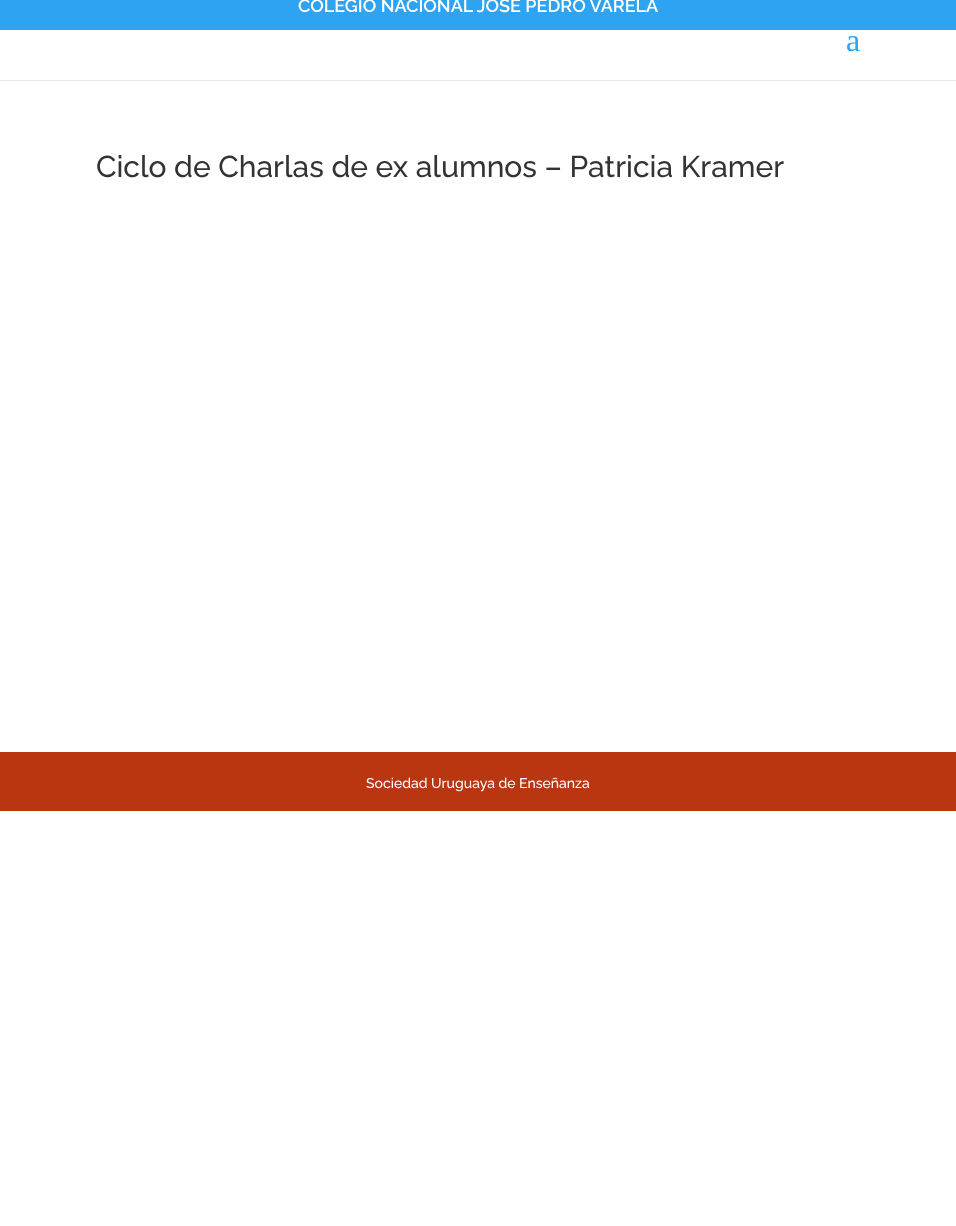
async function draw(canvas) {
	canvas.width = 956;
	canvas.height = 1226;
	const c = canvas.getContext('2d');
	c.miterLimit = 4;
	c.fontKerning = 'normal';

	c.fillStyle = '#fff';
	c.fillRect(0, 0, 956, 1226);
	c.fillStyle = '#2ea3f2';
	c.fillRect(0, 0, 956, 30);
	c.font = '600 18px Raleway';
	c.fillStyle = '#fff';
	c.fillText('COLEGIO NACIONAL JOSÉ PEDRO VARELA', 298, 12);
	c.fillStyle = '#e6e6e6';
	c.fillRect(0, 80, 956, 1);
	c.font = '32px Liberation Serif';
	c.fillStyle = '#2ea3f2';
	c.fillText('a', 846, 51);
	c.font = '500 30px Raleway';
	c.fillStyle = '#333';
	c.fillText('Ciclo de Charlas de ex alumnos – Patricia Kramer', 96, 177);
	c.fillStyle = '#ba3611';
	c.fillRect(0, 752, 956, 59);
	c.font = '500 14px Raleway';
	c.fillStyle = '#fff';
	c.fillText('Sociedad Uruguaya de Enseñanza', 366, 788);
}

draw(document.querySelector('canvas'));
